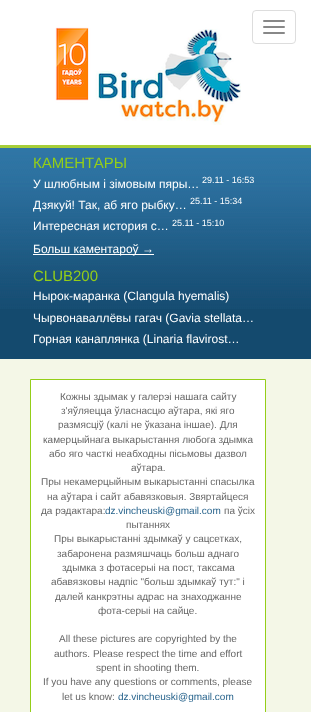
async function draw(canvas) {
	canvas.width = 311;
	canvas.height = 712;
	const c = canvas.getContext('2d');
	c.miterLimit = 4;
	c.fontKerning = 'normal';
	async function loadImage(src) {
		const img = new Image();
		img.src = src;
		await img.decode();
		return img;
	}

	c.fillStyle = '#f4f7e7';
	c.fillRect(0, 0, 311, 712);
	c.fillStyle = '#fff';
	c.fillRect(0, 0, 311, 145);
	c.drawImage(await loadImage('img1.png'), 55, 27, 186, 98);
	c.beginPath();
	c.roundRect(252.5, 10.5, 43, 33, 3.5);
	c.strokeStyle = '#ddd';
	c.stroke();
	c.fillStyle = '#888';
	c.beginPath();
	c.roundRect(263, 20, 22, 2, 1);
	c.fill();
	c.beginPath();
	c.roundRect(263, 26, 22, 2, 1);
	c.fill();
	c.beginPath();
	c.roundRect(263, 32, 22, 2, 1);
	c.fill();
	c.fillStyle = '#144a6e';
	c.fillRect(0, 309, 311, 50);
	c.drawImage(await loadImage('img2.png'), 0, 145, 311, 164);
	c.font = '15px Liberation Sans';
	c.fillStyle = '#94ce18';
	c.fillText('КАМЕНТАРЫ', 33, 168);
	c.font = '12px Liberation Sans';
	c.fillStyle = '#fff';
	c.fillText('У шлюбным і зімовым пяры…', 33, 188);
	c.font = '9px Liberation Sans';
	c.fillText('29.11 - 16:53', 202, 183);
	c.font = '12px Liberation Sans';
	c.fillText('Дзякуй! Так, аб яго рыбку…', 33, 209);
	c.font = '9px Liberation Sans';
	c.fillText('25.11 - 15:34', 190, 204);
	c.font = '12px Liberation Sans';
	c.fillText('Интересная история с…', 33, 230);
	c.font = '9px Liberation Sans';
	c.fillText('25.11 - 15:10', 172, 226);
	c.fillRect(33, 254, 121, 1);
	c.font = '12px Liberation Sans';
	c.fillText('Больш каментароў →', 33, 253);
	c.font = '15px Liberation Sans';
	c.fillStyle = '#94ce18';
	c.fillText('CLUB200', 33, 281);
	c.font = '12px Liberation Sans';
	c.fillStyle = '#fff';
	for (const [text, x, y] of [
		['Нырок-маранка (Clangula hyemalis)', 33, 300],
		['Чырвонаваллёвы гагач (Gavia stellata…', 33, 322],
		['Горная канаплянка (Linaria flavirost…', 33, 343],
	]) {
		c.fillText(text, x, y);
	}
	c.beginPath();
	c.rect(30.5, 379.5, 235, 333);
	c.fill();
	c.strokeStyle = '#94ce18';
	c.stroke();
	c.font = '10px Liberation Sans';
	c.fillStyle = '#666';
	for (const [text, x, y] of [
		['Кожны здымак у галерэі нашага сайту', 60, 400],
		['з\'яўляецца ўласнасцю аўтара, які яго', 61, 414],
		['размясціў (калі не ўказана іншае). Для', 58, 428],
		['камерцыйнага выкарыстання любога здымка', 43, 443],
		['або яго часткі неабходны пісьмовы дазвол', 49, 457],
		['аўтара.', 131, 471],
		['Пры некамерцыйным выкарыстанні спасылка', 41, 485],
		['на аўтара і сайт абавязковыя. Звяртайцеся', 47, 500],
		['да рэдактара:', 41, 514],
	]) {
		c.fillText(text, x, y);
	}
	c.fillStyle = '#27638c';
	c.fillText('dz.vincheuski@gmail.com', 105, 514);
	c.fillStyle = '#666';
	for (const [text, x, y] of [
		['па ўсіх', 224, 514],
		['пытаннях', 126, 528],
		['Пры выкарыстанні здымкаў у сацсетках,', 54, 542],
		['забаронена размяшчаць больш аднаго', 57, 557],
		['здымка з фотасерыі на пост, таксама', 62, 571],
		['абавязковы надпіс "больш здымкаў тут:" і', 51, 585],
		['далей канкрэтны адрас на знаходжанне', 55, 600],
		['фота-серыі на сайце.', 98, 614],
		['All these pictures are copyrighted by the', 59, 642],
		['authors. Please respect the time and effort', 54, 657],
		['spent in shooting them.', 96, 671],
		['If you have any questions or comments, please', 43, 685],
		['let us know:', 62, 700],
	]) {
		c.fillText(text, x, y);
	}
	c.fillStyle = '#27638c';
	c.fillText('dz.vincheuski@gmail.com', 118, 700);
}

draw(document.querySelector('canvas'));
